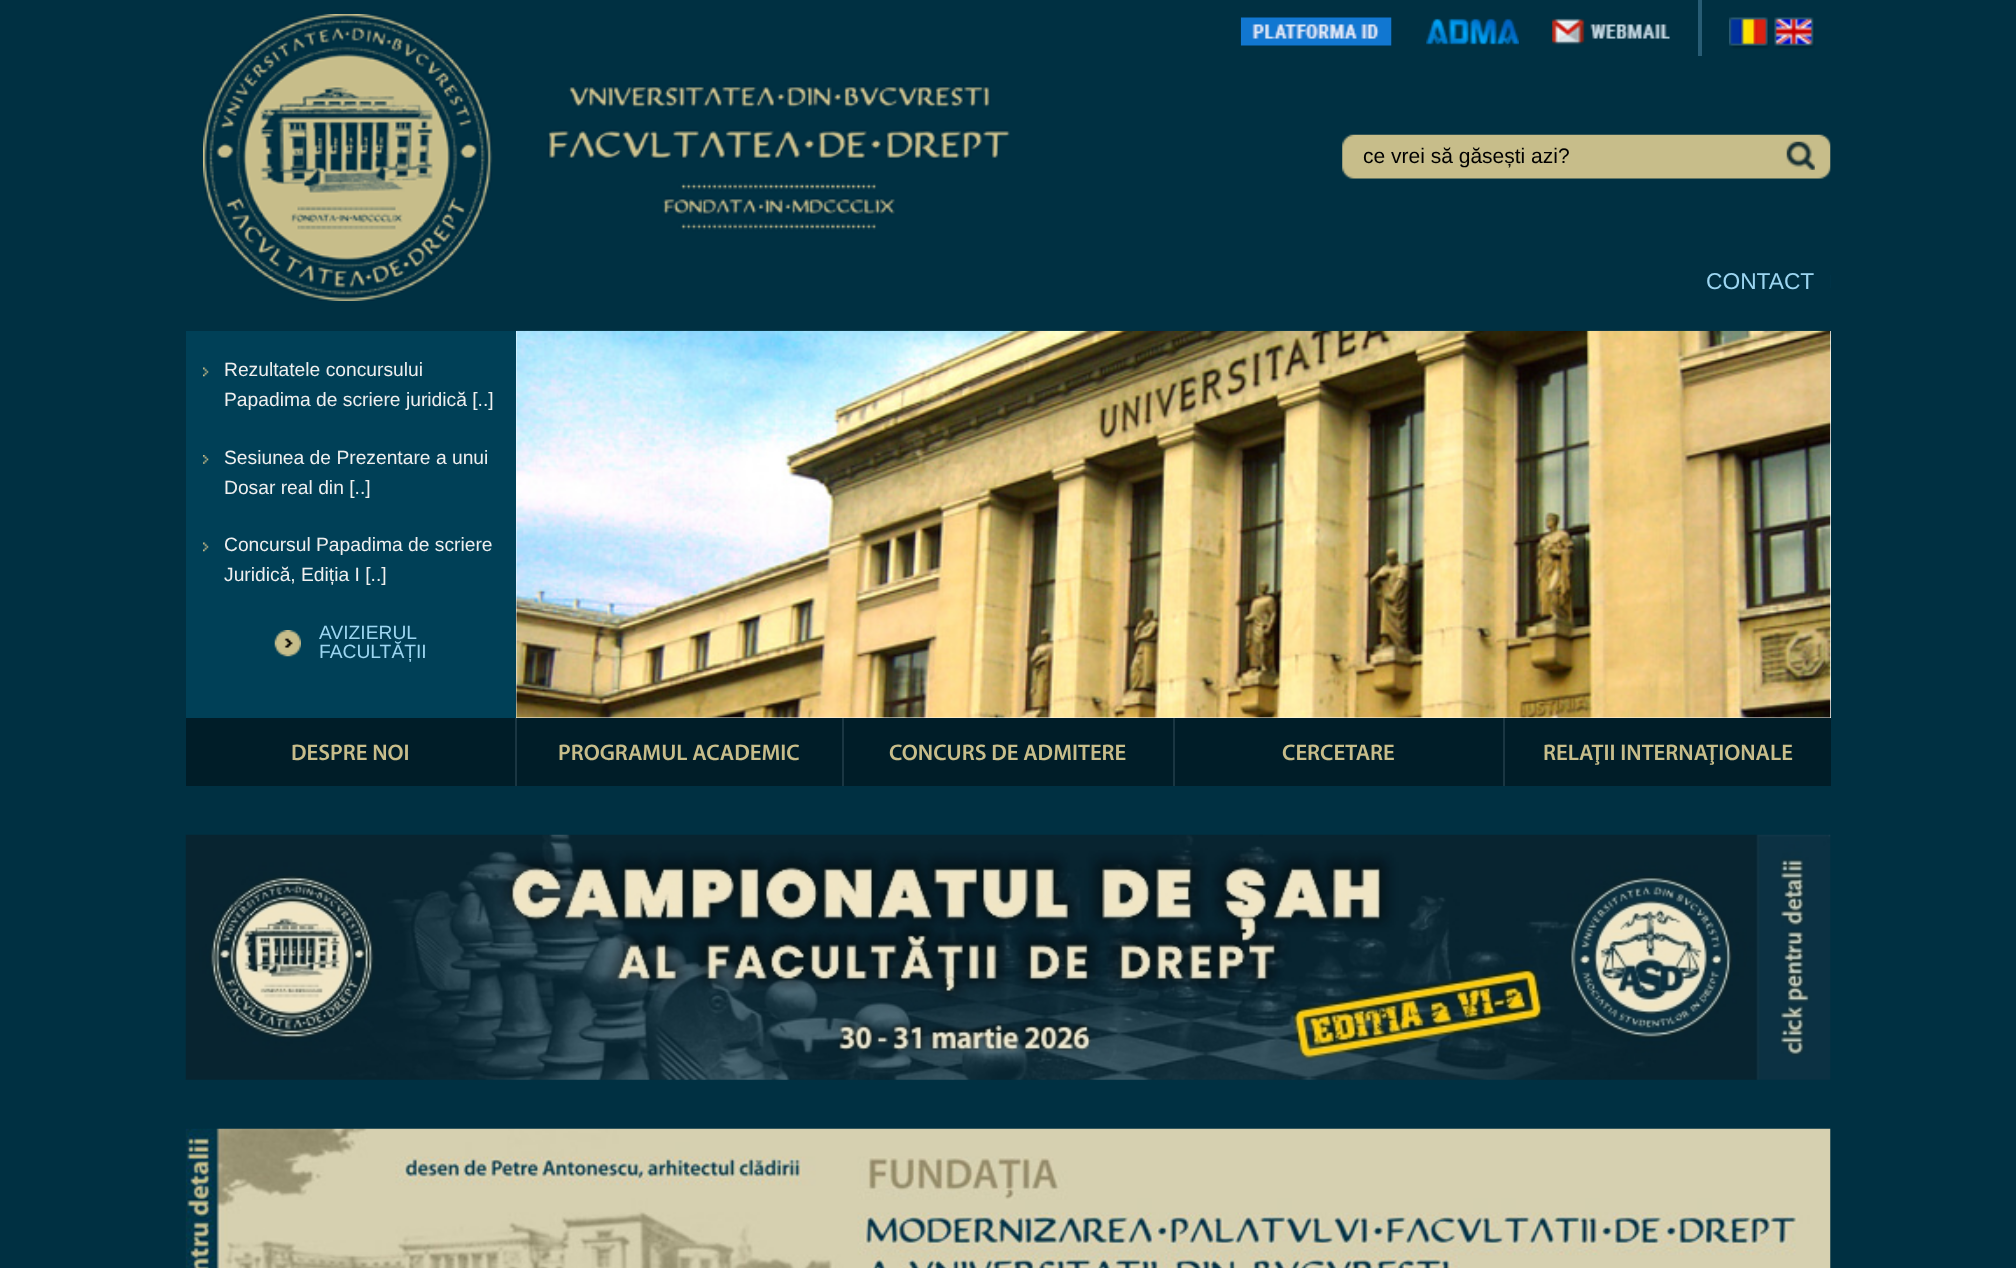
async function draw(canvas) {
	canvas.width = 2016;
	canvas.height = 1268;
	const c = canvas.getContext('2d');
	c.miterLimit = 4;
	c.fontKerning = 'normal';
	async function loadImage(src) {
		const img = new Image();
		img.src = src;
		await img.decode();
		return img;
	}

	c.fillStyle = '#003042';
	c.fillRect(0, 0, 2016, 1268);
	c.drawImage(await loadImage('img1.png'), 203, 14, 807, 287);
	c.fillStyle = '#285c74';
	c.fillRect(1698, 0, 4, 56);
	c.drawImage(await loadImage('img2.png'), 1240, 17, 152, 29);
	c.drawImage(await loadImage('img3.png'), 1426, 18, 93, 27);
	c.drawImage(await loadImage('img4.png'), 1552, 18, 118, 27);
	c.drawImage(await loadImage('img5.png'), 1729, 17, 40, 32);
	c.drawImage(await loadImage('img6.png'), 1774, 17, 41, 32);
	c.drawImage(await loadImage('img7.png'), 1342, 134, 489, 45);
	c.font = '21px Liberation Sans';
	c.fillStyle = '#000';
	c.fillText('ce vrei să găsești azi?', 1363, 163);
	c.drawImage(await loadImage('img8.png'), 1786, 141, 29, 29);
	c.fillStyle = '#003347';
	c.fillRect(1830, 275, 1, 13);
	c.font = '22.75px Liberation Sans';
	c.fillStyle = '#9cd6f1';
	c.fillText('CONTACT', 1706, 289);
	c.fillStyle = '#004057';
	c.fillRect(186, 331, 330, 387);
	c.drawImage(await loadImage('img9.png'), 203, 367, 6, 10);
	c.font = '19.25px Liberation Sans';
	c.fillStyle = '#efefef';
	c.fillText('Rezultatele concursului', 224, 376);
	c.fillText('Papadima de scriere juridică [..]', 224, 406);
	c.drawImage(await loadImage('img10.png'), 203, 455, 6, 9);
	c.fillText('Sesiunea de Prezentare a unui', 224, 464);
	c.fillText('Dosar real din [..]', 224, 494);
	c.drawImage(await loadImage('img9.png'), 203, 542, 6, 10);
	c.fillText('Concursul Papadima de scriere', 224, 551);
	c.fillText('Juridică, Ediția I [..]', 224, 581);
	c.drawImage(await loadImage('img11.png'), 274, 630, 27, 27);
	c.fillStyle = '#9cd6f1';
	c.fillText('AVIZIERUL', 319, 639);
	c.fillText('FACULTĂȚII', 319, 658);
	c.fillStyle = '#fff';
	c.fillRect(516, 331, 1315, 387);
	c.drawImage(await loadImage('img12.png'), 516, 330, 1315, 388);
	c.fillStyle = '#001d28';
	c.fillRect(186, 718, 1645, 68);
	c.fillStyle = '#1a3642';
	c.fillRect(515, 718, 2, 68);
	c.font = '600 22.75px Myriad';
	c.fillStyle = '#c7bd8a';
	c.fillText('DESPRE NOI', 291, 760);
	c.fillStyle = '#1a3642';
	c.fillRect(842, 718, 2, 68);
	c.fillStyle = '#c7bd8a';
	c.fillText('PROGRAMUL ACADEMIC', 558, 760);
	c.fillStyle = '#1a3642';
	c.fillRect(1173, 718, 2, 68);
	c.fillStyle = '#c7bd8a';
	c.fillText('CONCURS DE ADMITERE', 889, 760);
	c.fillStyle = '#1a3642';
	c.fillRect(1503, 718, 2, 68);
	c.fillStyle = '#c7bd8a';
	c.fillText('CERCETARE', 1282, 760);
	c.fillText('RELAŢII INTERNAŢIONALE', 1543, 760);
	c.drawImage(await loadImage('img13.png'), 185, 834, 1646, 246);
	c.drawImage(await loadImage('img14.png'), 185, 1128, 1646, 140);
}

draw(document.querySelector('canvas'));
